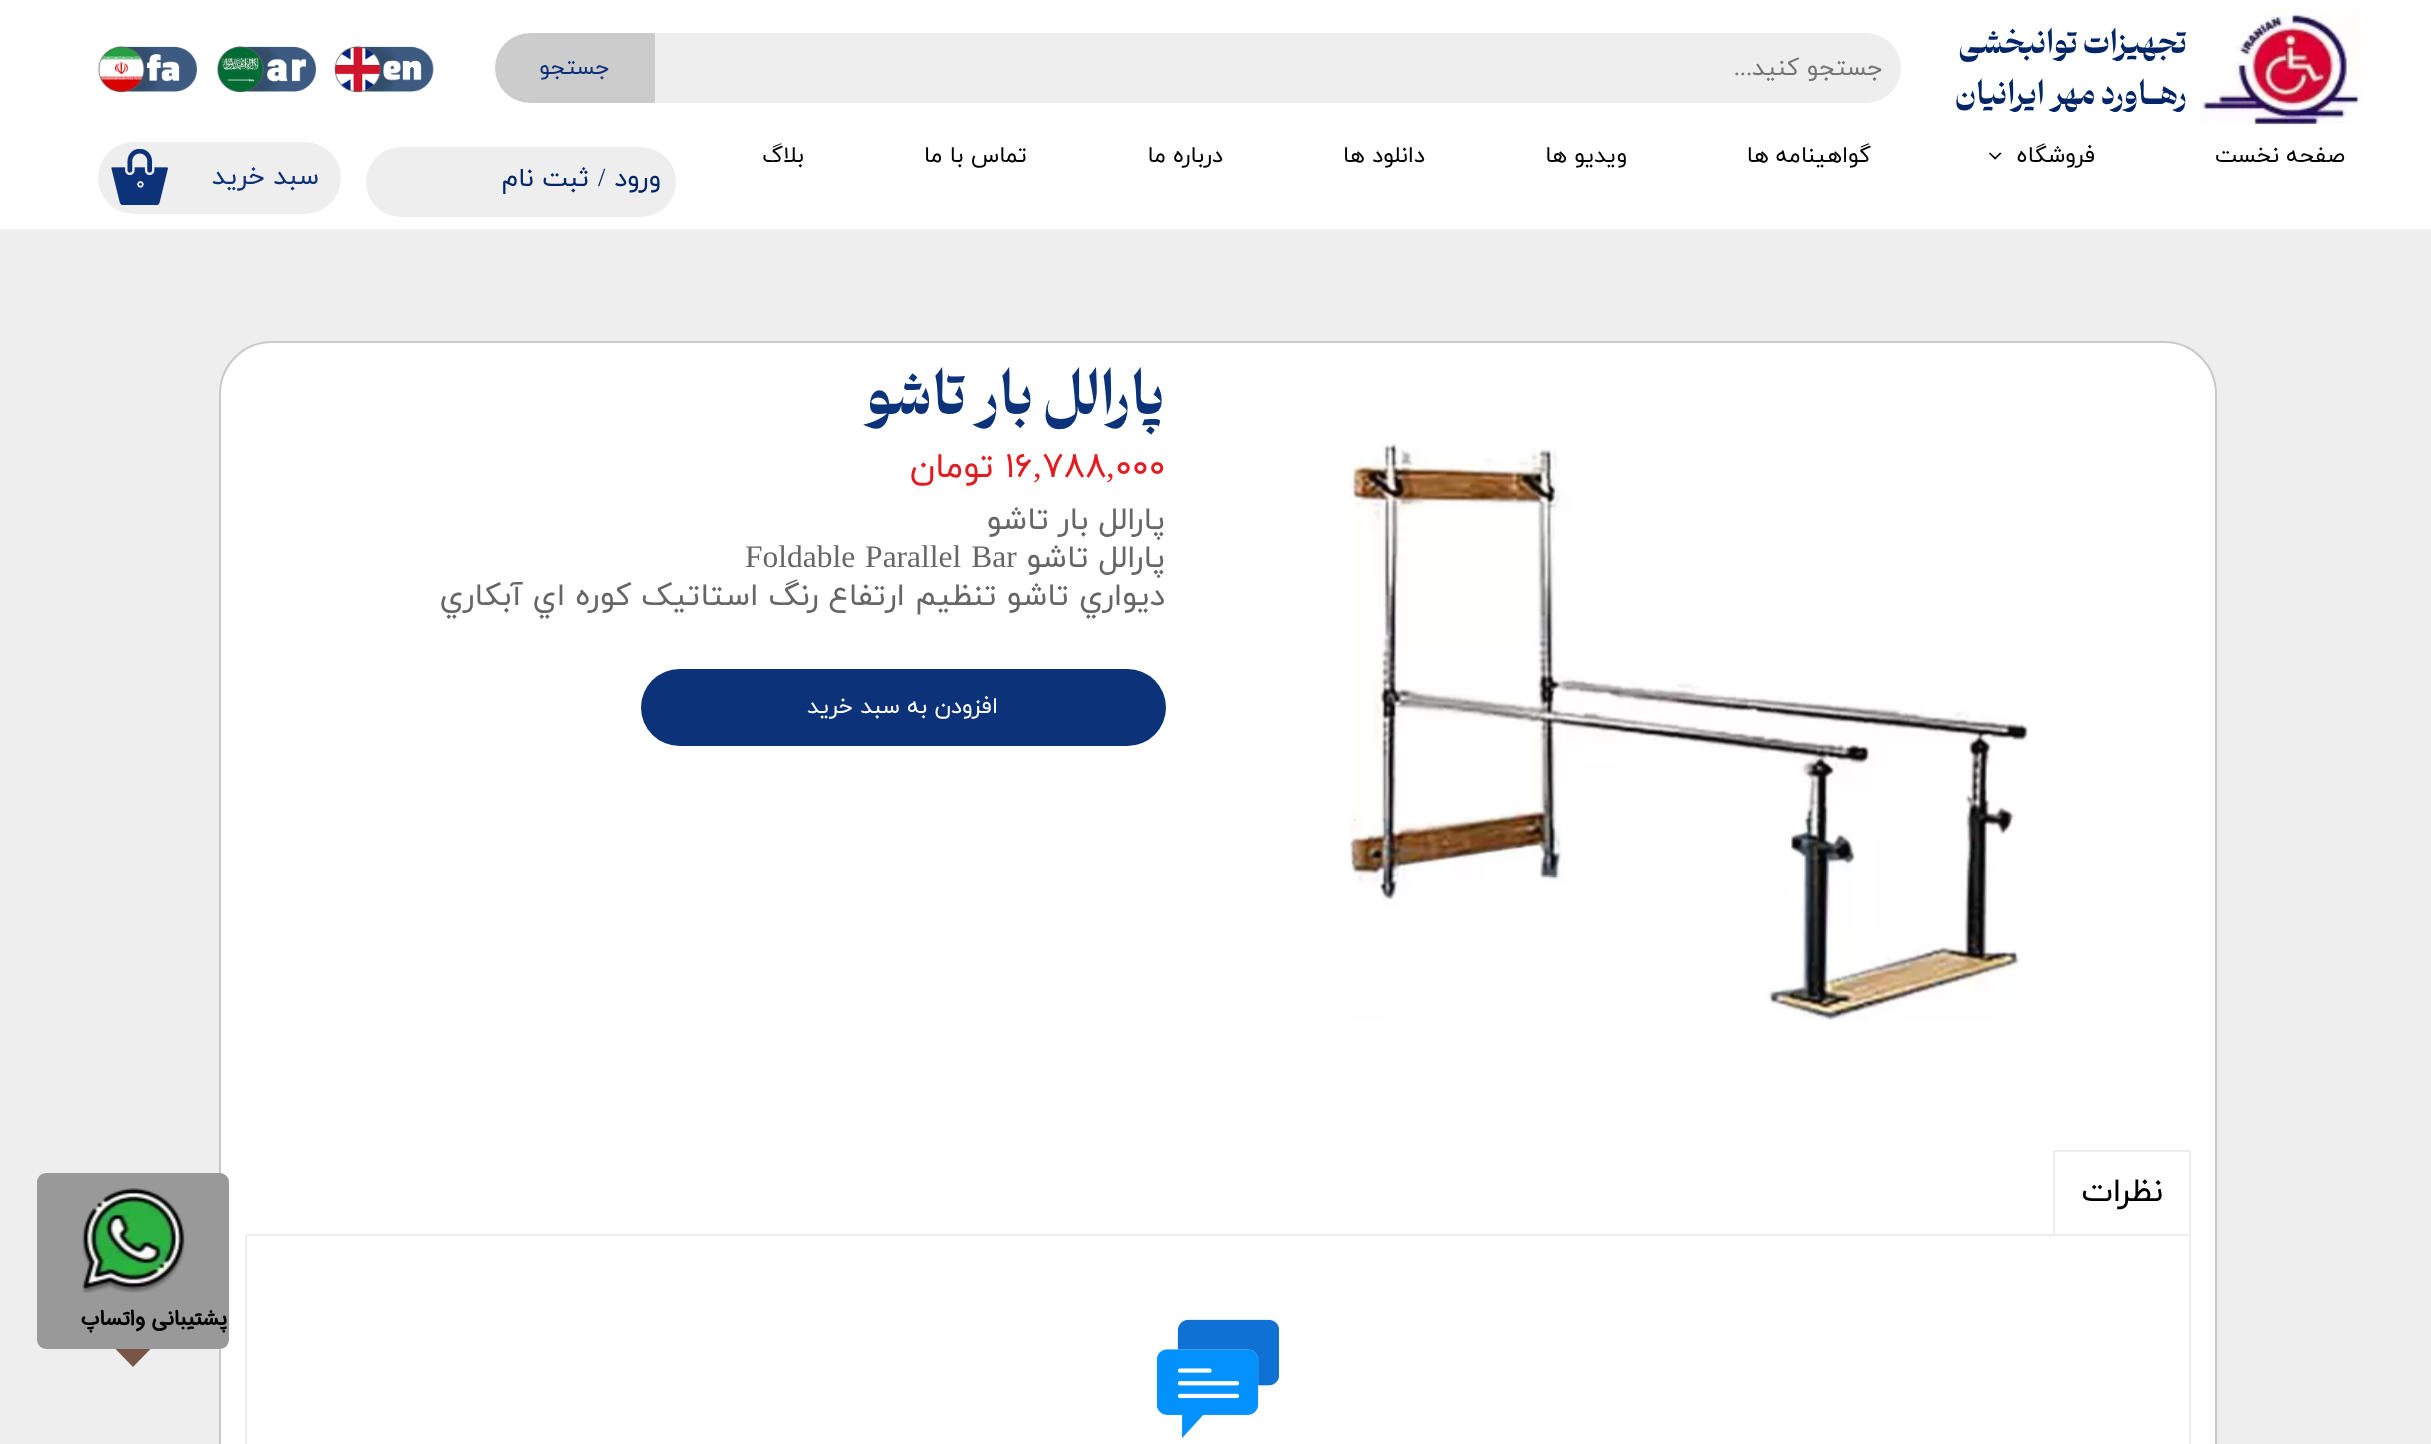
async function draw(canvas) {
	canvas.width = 2431;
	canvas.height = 1444;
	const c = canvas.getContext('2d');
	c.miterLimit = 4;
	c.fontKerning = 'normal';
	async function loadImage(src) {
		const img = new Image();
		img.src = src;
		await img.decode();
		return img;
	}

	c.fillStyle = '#fff';
	c.fillRect(0, 0, 2431, 1444);
	c.drawImage(await loadImage('img1.png'), 2200, 9, 162, 116);
	c.direction = 'rtl';
	c.font = '800 29.75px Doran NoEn';
	c.fillStyle = '#012567';
	c.fillText('تجهیزات توانبخشی', 2187, 53);
	c.fillText('رهــاورد مهر ایرانیان', 2187, 104);
	c.fillStyle = '#eee';
	c.beginPath();
	c.roundRect(655, 33, 1246, 70, [0, 35, 35, 0]);
	c.fill();
	c.font = '24.5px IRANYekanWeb';
	c.fillStyle = '#757575';
	c.fillText('جستجو کنید', 1883, 75);
	c.font = '24.5px Liberation Serif';
	c.fillText('...', 1752, 75);
	c.fillStyle = '#ccc';
	c.beginPath();
	c.roundRect(495, 33, 160, 70, [35, 0, 0, 35]);
	c.fill();
	c.font = '22.75px IRANYekanWeb';
	c.fillStyle = '#0c3279';
	c.fillText('جستجو', 610, 74);
	c.drawImage(await loadImage('img2.png'), 334, 46, 100, 47);
	c.drawImage(await loadImage('img3.png'), 217, 46, 99, 47);
	c.drawImage(await loadImage('img4.png'), 98, 46, 99, 47);
	c.fillStyle = '#000';
	c.fillText('صفحه نخست', 2345, 162);
	c.fillText('فروشگاه', 2095, 162);
	c.beginPath();
	c.moveTo(2000, 152.5);
	c.lineTo(2001.5, 153.5);
	c.lineTo(1995, 159.5);
	c.lineTo(1994, 158.5);
	c.closePath();
	c.fill();
	c.beginPath();
	c.moveTo(1990, 152.5);
	c.lineTo(1996.5, 158.5);
	c.lineTo(1995, 159.5);
	c.lineTo(1989, 153.5);
	c.closePath();
	c.fill();
	for (const [text, x, y] of [
		['گواهینامه ها', 1871, 162],
		['ویدیو ها', 1627, 162],
		['دانلود ها', 1425, 162],
		['درباره ما', 1223, 162],
		['تماس با ما', 1027, 162],
		['بلاگ', 804, 162],
	]) {
		c.fillText(text, x, y);
	}
	c.fillStyle = '#eee';
	c.beginPath();
	c.roundRect(366, 147, 310, 70, 35);
	c.fill();
	c.font = '26.25px IRANYekanWeb';
	c.fillStyle = '#012567';
	c.fillText('ورود', 661, 186);
	c.direction = 'ltr';
	c.font = '26.25px Liberation Serif';
	c.fillText('/', 598, 186);
	c.direction = 'rtl';
	c.font = '26.25px IRANYekanWeb';
	c.fillText('ثبت نام', 589, 186);
	c.fillStyle = '#eee';
	c.beginPath();
	c.roundRect(98, 142, 243, 72, 36);
	c.fill();
	c.fillStyle = '#0c3279';
	c.fillText('سبد خرید', 319, 184);
	c.drawImage(await loadImage('img5.png'), 111, 149, 57, 56);
	c.direction = 'ltr';
	c.font = '18px IRANYekanWeb';
	c.fillStyle = '#fff';
	c.fillText('۰', 136, 189);
	c.fillStyle = '#eee';
	c.fillRect(0, 229, 2431, 1215);
	c.fillStyle = '#fff';
	c.beginPath();
	c.roundRect(219, 341, 1998, 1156, 53);
	c.fill();
	c.beginPath();
	c.roundRect(220, 342, 1996, 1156, 52);
	c.strokeStyle = '#00000036';
	c.lineWidth = 2;
	c.stroke();
	c.drawImage(await loadImage('img6.png'), 1349, 443, 679, 578);
	c.direction = 'rtl';
	c.font = '800 54.25px Doran NoEn';
	c.fillStyle = '#0c3279';
	c.fillText('پارالل بار تاشو', 1165, 414);
	c.direction = 'ltr';
	c.font = '35px IRANYekanWeb';
	c.fillStyle = '#e21c21';
	for (const [text, x, y] of [
		['۰۰۰', 1115, 477],
		['۷۸۸', 1042, 477],
		['۱۶', 1005, 477],
	]) {
		c.fillText(text, x, y);
	}
	c.direction = 'rtl';
	c.fillText('تومان', 994, 477);
	c.direction = 'ltr';
	c.font = '35px Liberation Serif';
	c.fillText(',', 1106, 477);
	c.fillText(',', 1033, 477);
	c.direction = 'rtl';
	c.font = '31.5px IRANYekanWeb';
	c.fillStyle = '#666';
	c.fillText('پارالل بار تاشو', 1165, 529);
	c.fillText('پارالل تاشو', 1165, 567);
	c.wordSpacing = '2px';
	c.direction = 'ltr';
	c.font = '31.5px Liberation Serif';
	c.fillText('Foldable Parallel Bar', 745, 567);
	c.wordSpacing = '0px';
	c.direction = 'rtl';
	c.font = '31.5px IRANYekanWeb';
	c.fillText('ديواري تاشو تنظيم ارتفاع رنگ استاتيک کوره اي آبکاري', 1165, 605);
	c.fillStyle = '#0c3279';
	c.beginPath();
	c.roundRect(641, 669, 525, 77, 38.5);
	c.fill();
	c.font = '22.75px IRANYekanWeb';
	c.fillStyle = '#fff';
	c.fillText('افزودن به سبد خرید', 998, 713);
	for (const [x, y, w, h, color] of [
		[2053, 1150, 138, 2, '#ededed'],
		[2189, 1150, 2, 84, '#ededed'],
		[2053, 1150, 2, 84, '#ededed'],
	]) {
		c.fillStyle = color;
		c.fillRect(x, y, w, h);
	}
	c.font = '33px IRANYekanWeb';
	c.fillStyle = '#000';
	c.fillText('نظرات', 2163, 1201);
	c.strokeStyle = '#ededed';
	c.strokeRect(246, 1235, 1944, 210);
	c.drawImage(await loadImage('img7.png'), 1157, 1319, 122, 119);
	c.fillStyle = '#999';
	c.beginPath();
	c.roundRect(37, 1173, 192, 176, 9);
	c.fill();
	c.drawImage(await loadImage('img8.png'), 82, 1188, 103, 105);
	c.font = 'bold 21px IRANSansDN';
	c.fillStyle = '#000';
	c.fillText('پشتیبانی واتساپ', 227, 1325);
	c.fillStyle = '#795548';
	c.beginPath();
	c.moveTo(115.5, 1349);
	c.lineTo(150.5, 1349);
	c.lineTo(133, 1367);
	c.closePath();
	c.fill();
}

draw(document.querySelector('canvas'));
